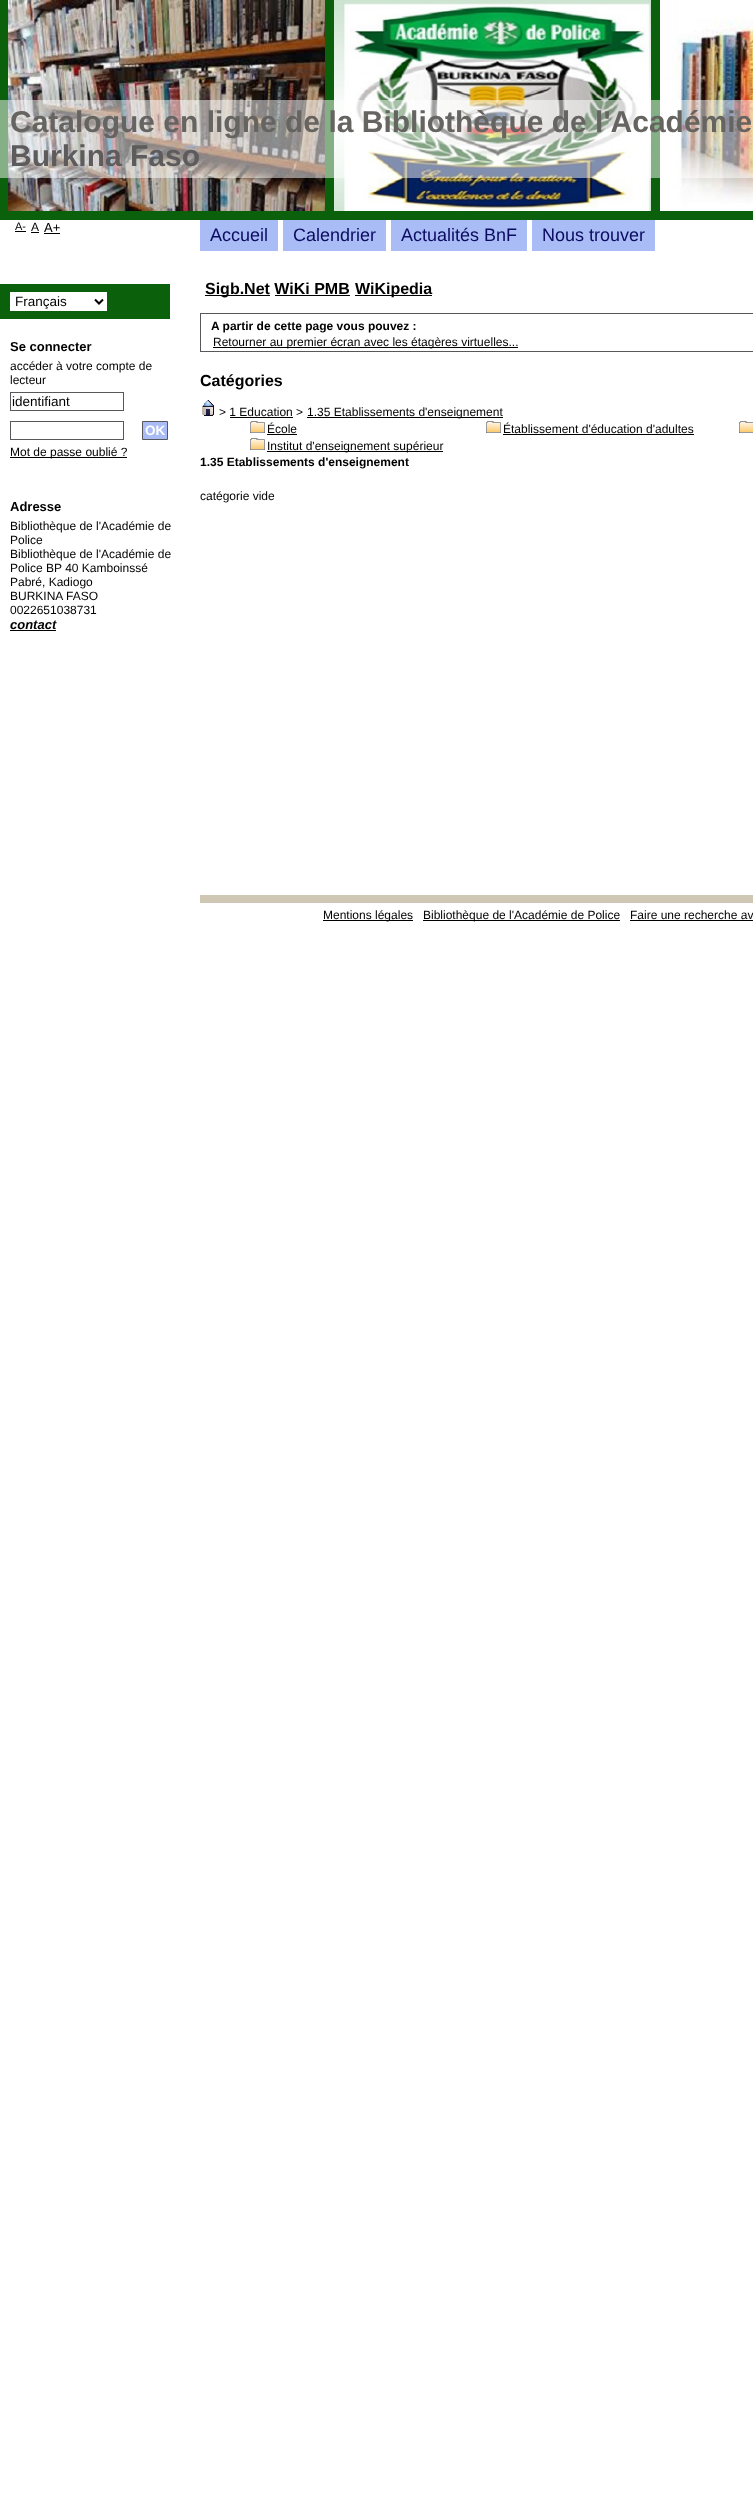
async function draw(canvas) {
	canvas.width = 753;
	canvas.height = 2494;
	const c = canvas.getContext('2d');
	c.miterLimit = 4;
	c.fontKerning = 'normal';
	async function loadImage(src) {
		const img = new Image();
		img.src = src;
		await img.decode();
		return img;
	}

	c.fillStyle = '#fff';
	c.fillRect(0, 0, 753, 2494);
	c.fillStyle = '#0b610b';
	c.fillRect(0, 0, 753, 220);
	c.drawImage(await loadImage('img4.png'), 8, 0, 317, 211);
	c.drawImage(await loadImage('img5.png'), 334, 0, 317, 211);
	c.drawImage(await loadImage('img6.png'), 660, 0, 93, 211);
	c.fillStyle = '#ffffff80';
	c.fillRect(0, 100, 753, 78);
	c.font = 'bold 30px Liberation Sans';
	c.fillStyle = '#666461';
	c.fillText('Catalogue en ligne de la Bibliothèque de l\'Académie', 10, 132);
	c.fillStyle = '#5d5b5b';
	c.fillText('Burkina Faso', 10, 166);
	c.fillStyle = '#000';
	c.fillRect(205, 295, 65, 1);
	c.font = 'bold 16px Liberation Sans';
	c.fillText('Sigb.Net WiKi PMB', 205, 294);
	c.fillRect(355, 295, 77, 1);
	c.fillText('WiKipedia', 355, 294);
	c.fillRect(275, 295, 75, 1);
	c.strokeStyle = '#58585c';
	c.strokeRect(200.5, 313.5, 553, 38);
	c.font = 'bold 12px Liberation Sans';
	c.fillText('A partir de cette page vous pouvez :', 211, 330);
	c.fillRect(213, 347, 305, 1);
	c.font = '12px Liberation Sans';
	c.fillText('Retourner au premier écran avec les étagères virtuelles...', 213, 346);
	c.font = 'bold 16px Liberation Sans';
	c.fillText('Catégories', 200, 386);
	c.drawImage(await loadImage('img1.png'), 202, 400, 12, 16);
	c.font = '12px Liberation Sans';
	c.fillText('> 1 Education >', 219, 416);
	c.fillRect(307, 417, 196, 1);
	c.fillText('1.35 Etablissements d\'enseignement', 307, 416);
	c.fillRect(230, 417, 63, 1);
	c.drawImage(await loadImage('img2.png'), 250, 421, 15, 12);
	c.fillText('École', 267, 433);
	c.fillRect(267, 434, 30, 1);
	c.drawImage(await loadImage('img2.png'), 486, 421, 15, 12);
	c.fillText('Établissement d\'éducation d\'adultes', 503, 433);
	c.fillRect(503, 434, 191, 1);
	c.drawImage(await loadImage('img3.png'), 739, 421, 14, 12);
	c.drawImage(await loadImage('img2.png'), 250, 438, 15, 12);
	c.fillRect(267, 451, 176, 1);
	c.fillText('Institut d\'enseignement supérieur', 267, 450);
	c.font = 'bold 12px Liberation Sans';
	c.fillText('1.35 Etablissements d\'enseignement', 200, 466);
	c.font = '12px Liberation Sans';
	c.fillText('catégorie vide', 200, 500);
	c.fillStyle = '#d0c6b4';
	c.fillRect(200, 895, 553, 8);
	c.fillStyle = '#000';
	c.fillRect(323, 920, 90, 1);
	c.fillText('Mentions légales', 323, 919);
	c.fillRect(423, 920, 197, 1);
	c.fillText('Bibliothèque de l\'Académie de Police', 423, 919);
	c.fillText('Faire une recherche av', 630, 919);
	c.fillRect(630, 920, 123, 1);
	c.font = '11px Liberation Sans';
	c.fillText('A-', 15, 230);
	c.fillRect(15, 231, 11, 1);
	c.font = '12px Liberation Sans';
	c.fillText('A', 31, 231);
	c.fillRect(31, 232, 8, 1);
	c.font = '13px Liberation Sans';
	c.fillText('A+', 44, 232);
	for (const [x, y, w, h, color] of [
		[44, 233, 16, 1, '#000'],
		[0, 284, 170, 35, '#0b610b'],
		[10, 292, 97, 19, '#fff'],
	]) {
		c.fillStyle = color;
		c.fillRect(x, y, w, h);
	}
	c.beginPath();
	c.moveTo(95, 299.5);
	c.lineTo(99, 303.5);
	c.lineTo(103, 299.5);
	c.strokeStyle = '#000';
	c.lineWidth = 2;
	c.stroke();
	c.font = '13.5px Liberation Sans';
	c.fillStyle = '#000';
	c.fillText('Français', 15, 306);
	c.font = 'bold 13px Liberation Sans';
	c.fillText('Se connecter', 10, 351);
	c.font = '12px Liberation Sans';
	c.fillText('accéder à votre compte de', 10, 370);
	c.fillText('lecteur', 10, 384);
	c.strokeStyle = '#58585c';
	c.lineWidth = 1;
	c.strokeRect(10.5, 392.5, 113, 18);
	c.font = '13.5px Liberation Sans';
	c.fillText('identifiant', 12, 406);
	c.strokeRect(10.5, 421.5, 113, 18);
	c.fillStyle = '#a9bcf5';
	c.beginPath();
	c.rect(142.5, 421.5, 25, 18);
	c.fill();
	c.stroke();
	c.font = 'bold 13.5px Liberation Sans';
	c.fillStyle = '#fff';
	c.fillText('OK', 145, 435);
	c.fillStyle = '#000';
	c.fillRect(10, 457, 117, 1);
	c.font = '12px Liberation Sans';
	c.fillText('Mot de passe oublié ?', 10, 456);
	c.font = 'bold 13px Liberation Sans';
	c.fillText('Adresse', 10, 511);
	c.font = '12px Liberation Sans';
	for (const [text, x, y] of [
		['Bibliothèque de l\'Académie de', 10, 530],
		['Police', 10, 544],
		['Bibliothèque de l\'Académie de', 10, 558],
		['Police BP 40 Kamboinssé', 10, 572],
		['Pabré, Kadiogo', 10, 586],
		['BURKINA FASO', 10, 600],
		['0022651038731', 10, 614],
	]) {
		c.fillText(text, x, y);
	}
	c.font = 'italic bold 13px Liberation Sans';
	c.fillText('contact', 10, 629);
	c.fillRect(10, 630, 46, 1);
	c.fillStyle = '#a9bcf5';
	c.fillRect(200, 220, 78, 31);
	c.font = '18px Liberation Sans';
	c.fillStyle = '#0b0b61';
	c.fillText('Accueil', 210, 241);
	c.fillStyle = '#a9bcf5';
	c.fillRect(283, 220, 103, 31);
	c.fillStyle = '#0b0b61';
	c.fillText('Calendrier', 293, 241);
	c.fillStyle = '#a9bcf5';
	c.fillRect(391, 220, 136, 31);
	c.fillStyle = '#0b0b61';
	c.fillText('Actualités BnF', 401, 241);
	c.fillStyle = '#a9bcf5';
	c.fillRect(532, 220, 123, 31);
	c.fillStyle = '#0b0b61';
	c.fillText('Nous trouver', 542, 241);
}

draw(document.querySelector('canvas'));
